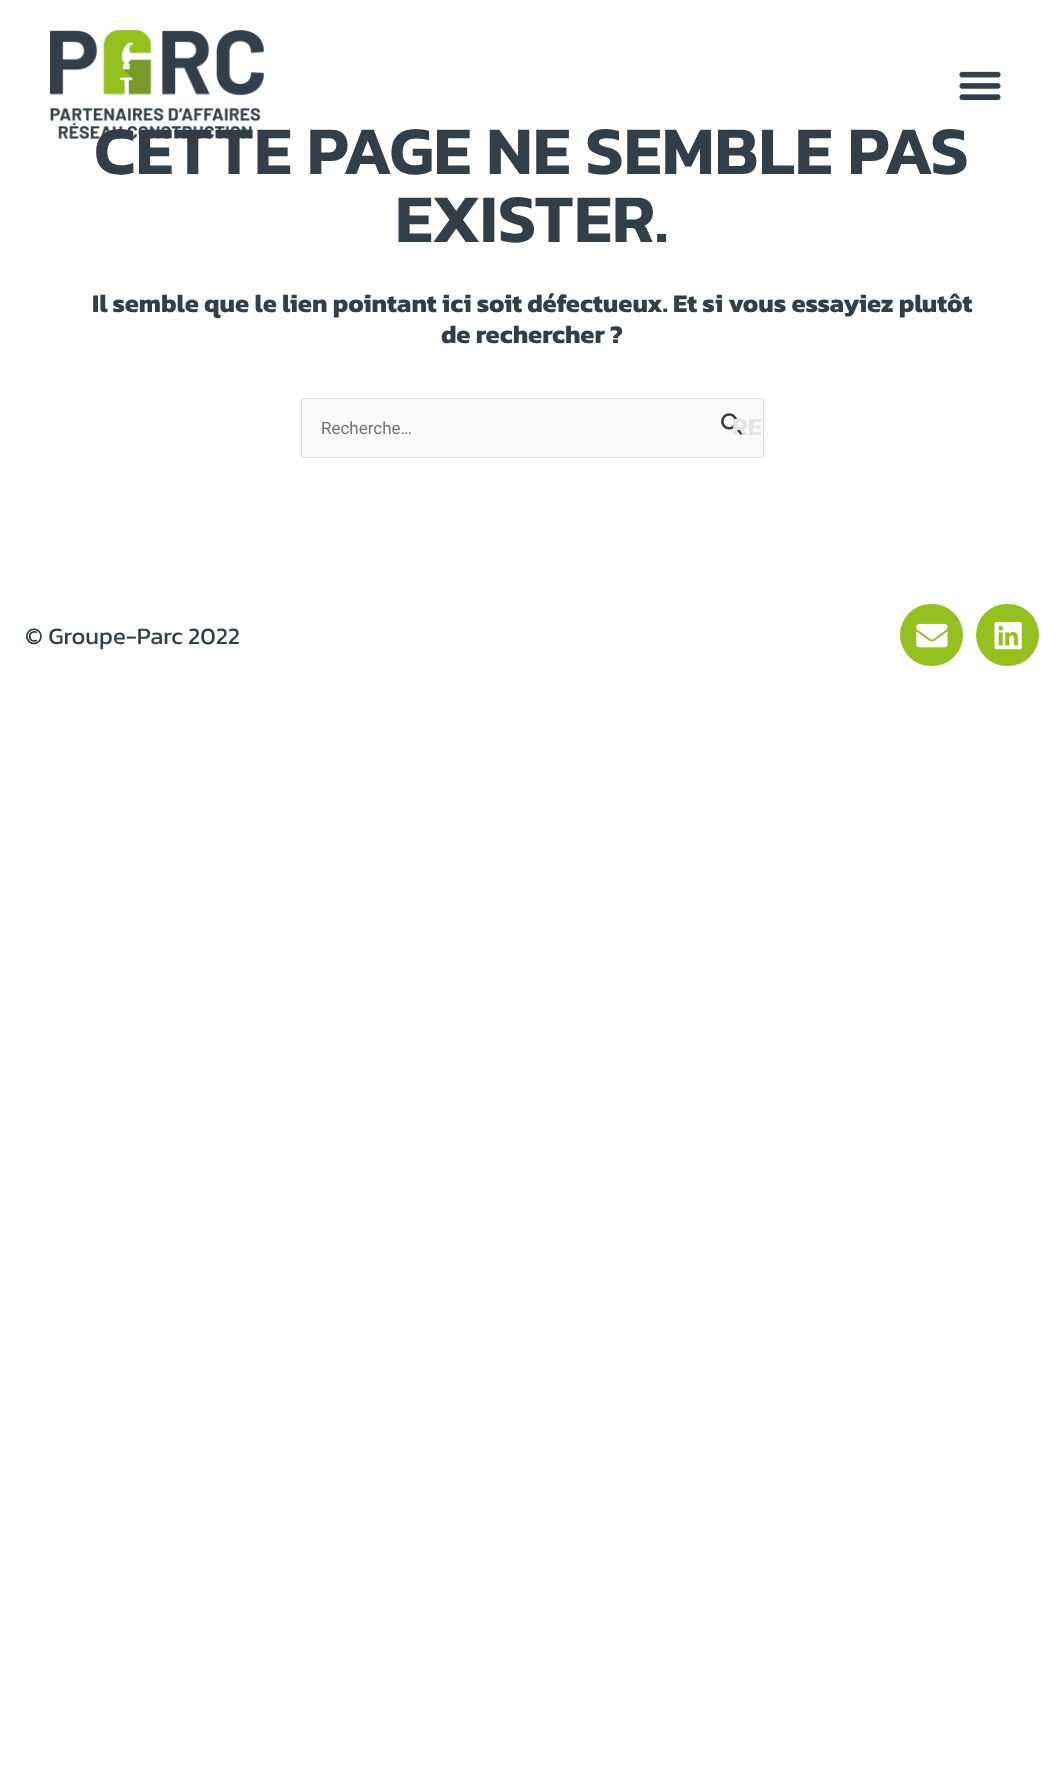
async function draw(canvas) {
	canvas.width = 1063;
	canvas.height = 1790;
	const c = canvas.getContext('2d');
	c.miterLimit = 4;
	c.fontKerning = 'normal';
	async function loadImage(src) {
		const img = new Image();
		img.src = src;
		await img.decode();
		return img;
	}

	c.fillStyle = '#fff';
	c.fillRect(0, 0, 1063, 1790);
	c.font = '600 68.75px Kanit';
	c.fillStyle = '#323e48';
	c.fillText('CETTE PAGE NE SEMBLE PAS', 94, 174);
	c.drawImage(await loadImage('img1.png'), 50, 30, 214, 109);
	c.drawImage(await loadImage('img2.png'), 959, 71, 42, 29);
	c.fillText('EXISTER.', 395, 242);
	c.font = 'bold 25.65px Kanit';
	c.fillText('Il semble que le lien pointant ici soit défectueux. Et si vous essayiez plutôt', 92, 312);
	c.fillText('de rechercher ?', 441, 343);
	c.fillStyle = '#fafafa';
	c.beginPath();
	c.roundRect(301.5, 398.5, 462, 59, 2);
	c.fill();
	c.strokeStyle = '#ddd';
	c.stroke();
	c.font = '17px Roboto';
	c.fillStyle = '#757575';
	c.fillText('Recherche…', 321, 434);
	c.drawImage(await loadImage('img3.png'), 721, 413, 22, 23);
	c.font = '600 25px Kanit';
	c.fillStyle = '#e5e5e5';
	c.fillText('RE', 732, 435);
	c.font = '23.75px Kanit';
	c.fillStyle = '#323e48';
	c.fillText('© Groupe-Parc 2022', 25, 644);
	c.fillStyle = '#94c11f';
	c.beginPath();
	c.roundRect(900, 604, 63, 62, 31);
	c.fill();
	c.drawImage(await loadImage('img4.png'), 916, 623, 32, 25);
	c.beginPath();
	c.roundRect(976, 604, 63, 62, 31);
	c.fill();
	c.drawImage(await loadImage('img5.png'), 994, 621, 28, 29);
}

draw(document.querySelector('canvas'));
